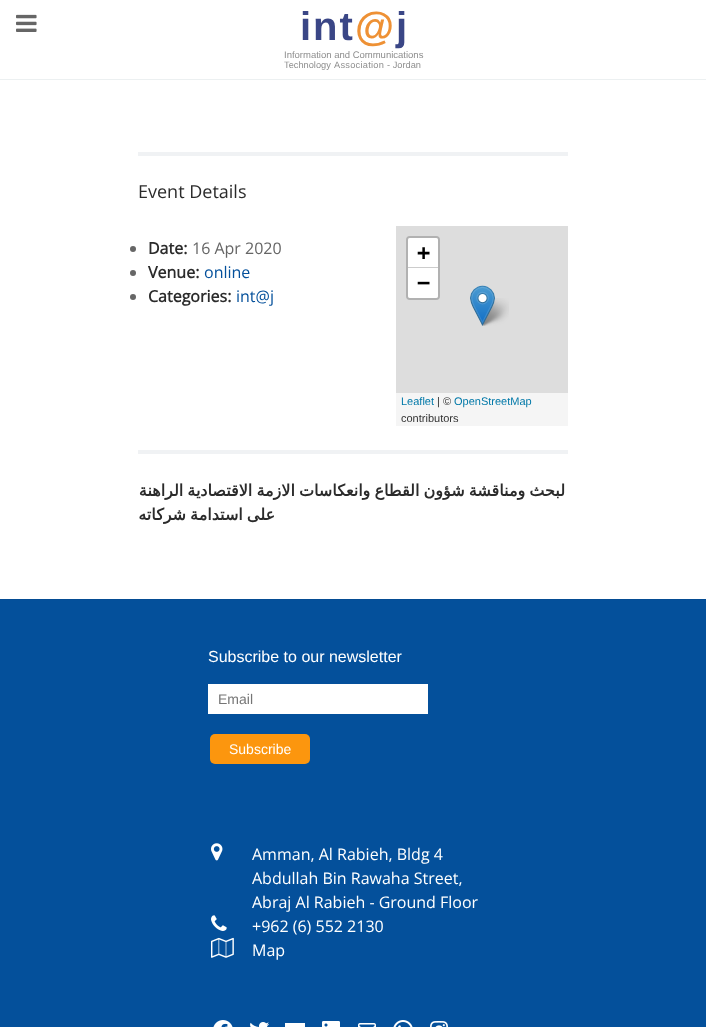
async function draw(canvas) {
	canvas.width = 706;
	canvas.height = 1027;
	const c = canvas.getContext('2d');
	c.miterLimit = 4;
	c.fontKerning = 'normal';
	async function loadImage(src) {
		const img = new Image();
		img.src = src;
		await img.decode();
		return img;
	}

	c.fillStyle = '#fff';
	c.fillRect(0, 0, 706, 1027);
	c.drawImage(await loadImage('img1.png'), 16, 14, 21, 18);
	c.fillStyle = '#ecf0f1';
	c.fillRect(0, 79, 706, 1);
	c.letterSpacing = '2px';
	c.font = 'bold 40px Liberation Sans';
	c.fillStyle = '#3a4686';
	c.fillText('int', 300, 40);
	c.fillStyle = '#ee9135';
	c.fillText('@', 355, 40);
	c.fillStyle = '#3a4686';
	c.fillText('j', 396, 40);
	c.letterSpacing = '0px';
	c.font = '9.5px Liberation Sans';
	c.fillStyle = '#8e8e8e';
	c.fillText('Information and Communications', 284, 58);
	c.font = '9.25px Liberation Sans';
	c.fillText('Technology', 284, 68);
	c.letterSpacing = '0.25px';
	c.fillText('Association', 334, 68);
	c.letterSpacing = '0px';
	c.fillText('- Jordan', 387, 68);
	c.fillStyle = '#f0f2f4';
	c.fillRect(138, 152, 430, 4);
	c.font = '18px Open Sans';
	c.fillStyle = '#2b2b2b';
	c.fillText('Event Details', 138, 198);
	c.fillStyle = '#666';
	c.beginPath();
	c.arc(133, 249, 3, 0, 2 * Math.PI);
	c.fill();
	c.font = 'bold 16px Open Sans';
	c.fillStyle = '#2b2b2b';
	c.fillText('Date:', 148, 254);
	c.font = '16px Open Sans';
	c.fillStyle = '#666';
	c.fillText('16 Apr 2020', 192, 254);
	c.beginPath();
	c.arc(133, 273, 3, 0, 2 * Math.PI);
	c.fill();
	c.font = 'bold 16px Open Sans';
	c.fillStyle = '#2b2b2b';
	c.fillText('Venue:', 148, 278);
	c.font = '16px Open Sans';
	c.fillStyle = '#04509b';
	c.fillText('online', 204, 278);
	c.fillStyle = '#666';
	c.beginPath();
	c.arc(133, 297, 3, 0, 2 * Math.PI);
	c.fill();
	c.font = 'bold 16px Open Sans';
	c.fillStyle = '#2b2b2b';
	c.fillText('Categories:', 148, 302);
	c.font = '16px Open Sans';
	c.fillStyle = '#04509b';
	c.fillText('int@j', 236, 302);
	c.fillStyle = '#ddd';
	c.fillRect(396, 226, 172, 167);
	c.beginPath();
	c.roundRect(407, 237, 32, 62, 3);
	c.strokeStyle = '#b1b1b1';
	c.lineWidth = 2;
	c.stroke();
	c.fillStyle = '#fff';
	c.beginPath();
	c.roundRect(408, 238, 30, 30, [2, 2, 0, 0]);
	c.fill();
	c.fillStyle = '#ccc';
	c.fillRect(408, 267, 30, 1);
	c.font = 'bold 22px DejaVu Sans Mono';
	c.fillStyle = '#000';
	c.fillText('+', 417, 260);
	c.fillStyle = '#fff';
	c.beginPath();
	c.roundRect(408, 268, 30, 30, [0, 0, 2, 2]);
	c.fill();
	c.fillStyle = '#000';
	c.fillText('−', 417, 290);
	c.fillStyle = '#f5f5f5';
	c.fillRect(396, 393, 172, 33);
	c.font = '11px Liberation Sans';
	c.fillStyle = '#0078a8';
	c.fillText('Leaflet', 401, 405);
	c.fillStyle = '#333';
	c.fillText('| ©', 437, 405);
	c.fillStyle = '#0078a8';
	c.fillText('OpenStreetMap', 454, 405);
	c.fillStyle = '#333';
	c.fillText('contributors', 401, 422);
	c.drawImage(await loadImage('img3.png'), 480, 298, 29, 28);
	c.drawImage(await loadImage('img2.png'), 470, 285, 25, 41);
	c.fillStyle = '#f0f2f4';
	c.fillRect(138, 450, 430, 4);
	c.wordSpacing = '-1px';
	c.direction = 'rtl';
	c.font = 'bold 16px DejaVu Sans';
	c.fillStyle = '#2b2b2b';
	c.fillText('لبحث ومناقشة شؤون القطاع وانعكاسات الازمة الاقتصادية الراهنة', 565, 496);
	c.fillText('على استدامة شركاته', 275, 520);
	c.fillStyle = '#04509b';
	c.fillRect(0, 600, 706, 427);
	c.fillStyle = '#044c93';
	c.fillRect(0, 599, 706, 1);
	c.wordSpacing = '0px';
	c.direction = 'ltr';
	c.font = '16px Liberation Sans';
	c.fillStyle = '#fff';
	c.fillText('Subscribe to our newsletter', 208, 662);
	c.fillRect(208, 684, 220, 30);
	c.font = '14px Liberation Sans';
	c.fillStyle = '#757575';
	c.fillText('Email', 218, 704);
	c.fillStyle = '#fc960e';
	c.beginPath();
	c.roundRect(210, 734, 100, 30, 5);
	c.fill();
	c.fillStyle = '#fff';
	c.fillText('Subscribe', 229, 754);
	c.drawImage(await loadImage('img4.png'), 211, 843, 12, 18);
	c.font = '16px Open Sans';
	for (const [text, x, y] of [
		['Amman, Al Rabieh, Bldg 4', 252, 860],
		['Abdullah Bin Rawaha Street,', 252, 884],
		['Abraj Al Rabieh - Ground Floor', 252, 908],
	]) {
		c.fillText(text, x, y);
	}
	c.drawImage(await loadImage('img5.png'), 211, 915, 16, 16);
	c.fillText('+962 (6) 552 2130', 252, 932);
	c.drawImage(await loadImage('img6.png'), 211, 937, 23, 21);
	c.fillText('Map', 252, 956);
	c.drawImage(await loadImage('img7.png'), 213, 1020, 20, 7);
	c.drawImage(await loadImage('img8.png'), 250, 1022, 19, 5);
	c.fillRect(285, 1023, 20, 4);
	c.drawImage(await loadImage('img9.png'), 322, 1021, 18, 6);
	c.drawImage(await loadImage('img10.png'), 358, 1023, 18, 4);
	c.drawImage(await loadImage('img11.png'), 393, 1020, 20, 7);
	c.drawImage(await loadImage('img12.png'), 430, 1021, 18, 6);
}

draw(document.querySelector('canvas'));
